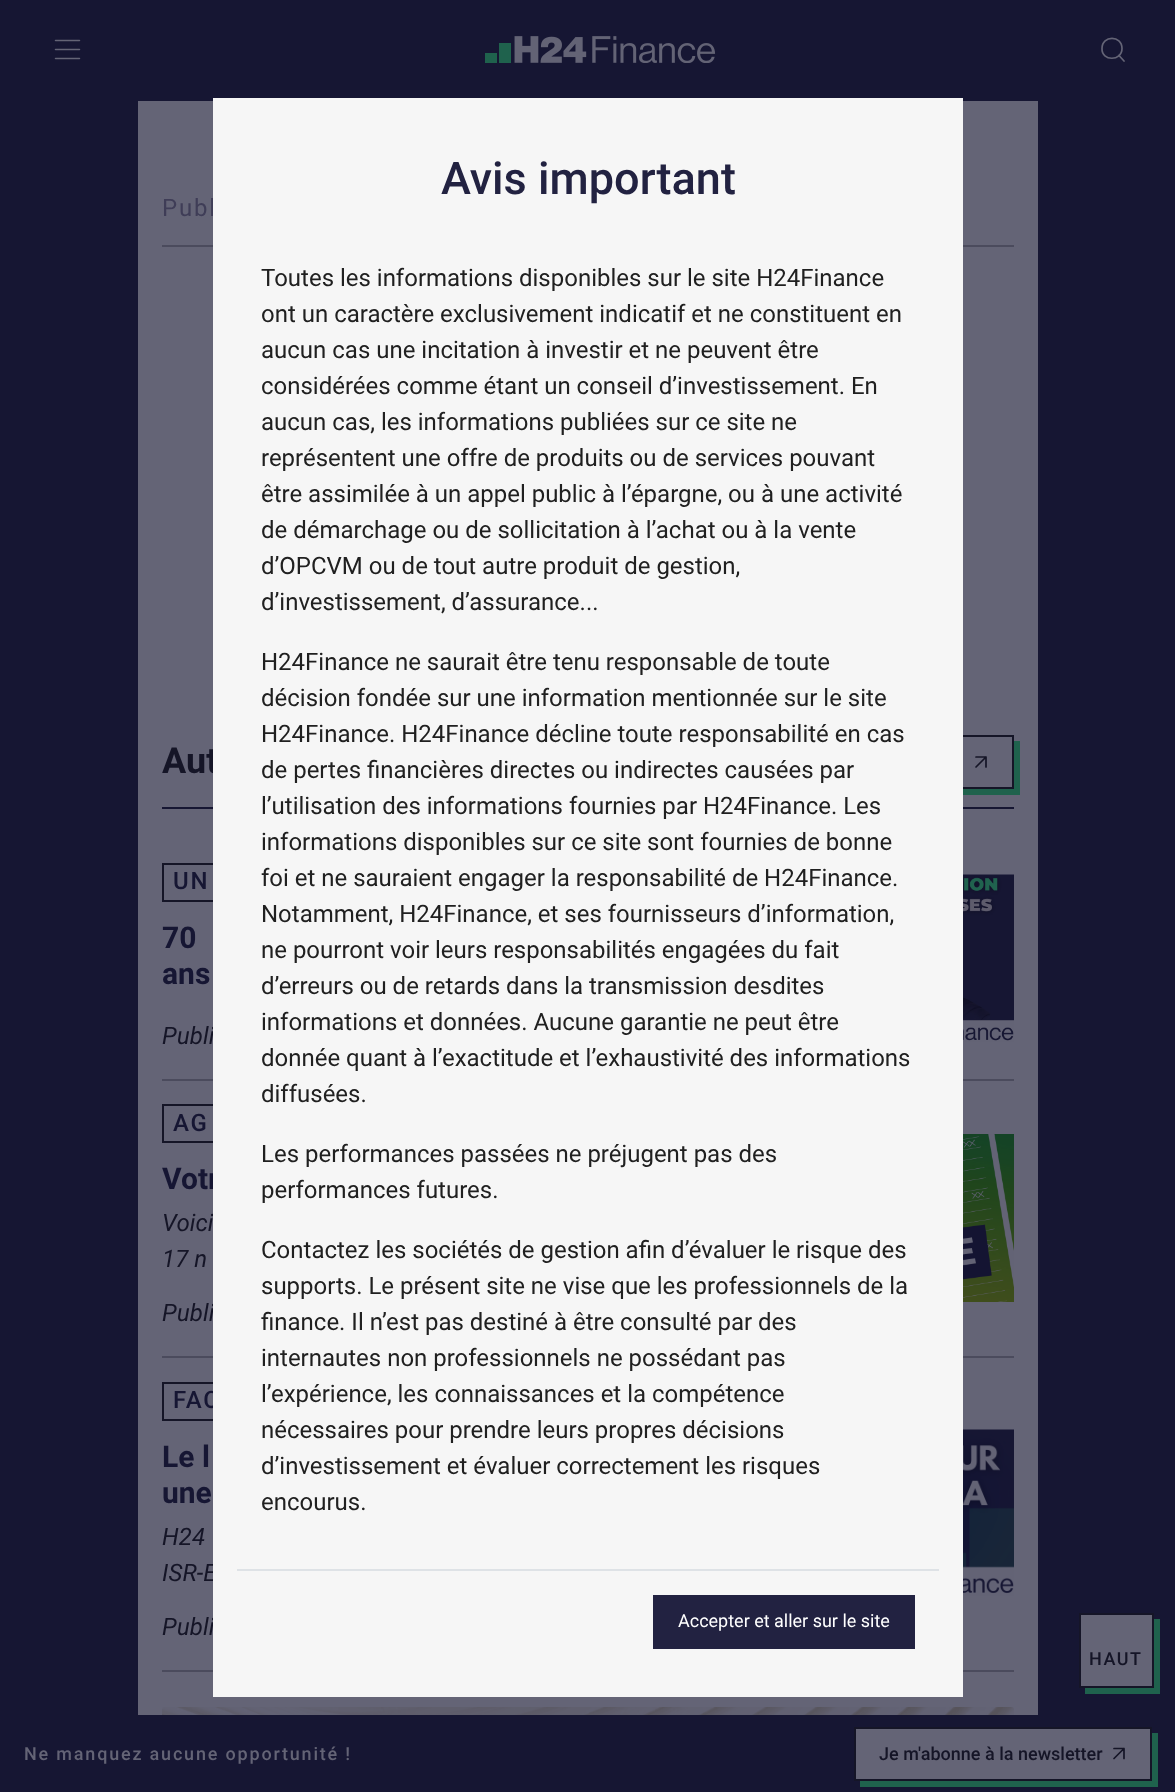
async function draw(canvas) {
	canvas.width = 1175;
	canvas.height = 1792;
	const c = canvas.getContext('2d');
	c.miterLimit = 4;
	c.fontKerning = 'normal';
	async function loadImage(src) {
		const img = new Image();
		img.src = src;
		await img.decode();
		return img;
	}

	c.fillStyle = '#161633';
	c.fillRect(0, 0, 1175, 1792);
	c.beginPath();
	c.moveTo(55.5, 49.5);
	c.lineTo(79.5, 49.5);
	c.moveTo(55.5, 40.5);
	c.lineTo(79.5, 40.5);
	c.moveTo(55.5, 58.5);
	c.lineTo(79.5, 58.5);
	c.strokeStyle = '#646476';
	c.lineWidth = 1.5;
	c.lineCap = 'round';
	c.lineJoin = 'round';
	c.stroke();
	c.drawImage(await loadImage('img1.png'), 485, 36, 231, 27);
	c.beginPath();
	c.moveTo(1119, 55.5);
	c.lineTo(1124, 61);
	c.lineWidth = 1.7;
	c.stroke();
	c.beginPath();
	c.moveTo(1122, 48.5);
	c.bezierCurveTo(1122, 35, 1102, 35, 1102, 48.5);
	c.bezierCurveTo(1101.5, 61.5, 1122, 61.5, 1122, 48.5);
	c.closePath();
	c.lineCap = 'butt';
	c.stroke();
	c.fillStyle = '#646476';
	c.fillRect(138, 101, 900, 1614);
	c.fillStyle = '#4b4b5d';
	c.fillRect(162, 245, 852, 2);
	c.letterSpacing = '1.8px';
	c.font = '24px Roboto';
	c.fillStyle = '#3f3d57';
	c.fillText('Publ', 162, 216);
	c.fillStyle = '#161633';
	c.fillRect(162, 807, 852, 2);
	c.letterSpacing = '0px';
	c.font = 'bold 36px Roboto';
	c.fillStyle = '#151527';
	c.fillText('Aut', 162, 773);
	c.fillStyle = '#1f624d';
	c.beginPath();
	c.moveTo(780, 789);
	c.lineTo(780, 795);
	c.lineTo(1020, 795);
	c.lineTo(1020, 741);
	c.lineTo(1014, 741);
	c.lineTo(1014, 789);
	c.closePath();
	c.fill();
	c.strokeStyle = '#151527';
	c.lineWidth = 2;
	c.lineJoin = 'miter';
	c.strokeRect(775, 736, 238, 52);
	c.beginPath();
	c.moveTo(976, 757);
	c.lineTo(986, 757);
	c.moveTo(986, 757);
	c.lineTo(986, 767);
	c.moveTo(986, 757);
	c.lineTo(976, 767);
	c.lineWidth = 1.7;
	c.lineCap = 'round';
	c.lineJoin = 'round';
	c.stroke();
	c.fillStyle = '#4b4b5d';
	c.fillRect(162, 1079, 852, 2);
	c.lineWidth = 2;
	c.lineJoin = 'miter';
	c.strokeRect(163, 864, 369, 37);
	c.letterSpacing = '1.8px';
	c.font = '500 24px Roboto';
	c.fillStyle = '#161633';
	c.fillText('UN', 173, 889);
	c.letterSpacing = '0px';
	c.font = 'bold 30px Roboto';
	c.fillText('70', 162, 948);
	c.fillText('ans', 162, 984);
	c.font = 'italic 24px Roboto';
	c.fillStyle = '#151527';
	c.fillText('Publi', 162, 1044);
	c.drawImage(await loadImage('img2.png'), 963, 874, 51, 169);
	c.fillStyle = '#4b4b5d';
	c.fillRect(162, 1356, 852, 2);
	c.strokeRect(163, 1105, 124, 37);
	c.letterSpacing = '1.8px';
	c.font = '500 24px Roboto';
	c.fillStyle = '#161633';
	c.fillText('AG', 173, 1131);
	c.letterSpacing = '0px';
	c.font = 'bold 30px Roboto';
	c.fillText('Votr', 162, 1189);
	c.font = 'italic 24px Roboto';
	c.fillStyle = '#151527';
	for (const [text, x, y] of [
		['Voici', 162, 1231],
		['17 n', 162, 1267],
		['Publi', 162, 1321],
	]) {
		c.fillText(text, x, y);
	}
	c.drawImage(await loadImage('img3.png'), 963, 1134, 51, 168);
	c.fillStyle = '#4b4b5d';
	c.fillRect(162, 1670, 852, 2);
	c.strokeRect(163, 1383, 235, 37);
	c.letterSpacing = '1.8px';
	c.font = '500 24px Roboto';
	c.fillStyle = '#161633';
	c.fillText('FAC', 173, 1408);
	c.letterSpacing = '0px';
	c.font = 'bold 30px Roboto';
	c.fillText('Le l', 162, 1467);
	c.fillText('une', 162, 1503);
	c.font = 'italic 24px Roboto';
	c.fillStyle = '#151527';
	for (const [text, x, y] of [
		['H24', 162, 1545],
		['ISR-E', 162, 1581],
		['Publi', 162, 1635],
	]) {
		c.fillText(text, x, y);
	}
	c.drawImage(await loadImage('img4.png'), 963, 1429, 51, 167);
	c.drawImage(await loadImage('img5.png'), 162, 1707, 852, 8);
	c.fillStyle = '#f6f6f6';
	c.fillRect(213, 98, 750, 1599);
	c.font = '500 45px Roboto';
	c.fillStyle = '#222241';
	c.fillText('Avis important', 441, 194);
	c.font = '24px Roboto';
	c.fillStyle = '#202020';
	for (const [text, x, y] of [
		['Toutes les informations disponibles sur le site H24Finance', 261, 286],
		['ont un caractère exclusivement indicatif et ne constituent en', 261, 322],
		['aucun cas une incitation à investir et ne peuvent être', 261, 358],
		['considérées comme étant un conseil d’investissement. En', 261, 394],
		['aucun cas, les informations publiées sur ce site ne', 261, 430],
		['représentent une offre de produits ou de services pouvant', 261, 466],
		['être assimilée à un appel public à l’épargne, ou à une activité', 261, 502],
		['de démarchage ou de sollicitation à l’achat ou à la vente', 261, 538],
		['d’OPCVM ou de tout autre produit de gestion,', 261, 574],
		['d’investissement, d’assurance...', 261, 610],
		['H24Finance ne saurait être tenu responsable de toute', 261, 670],
		['décision fondée sur une information mentionnée sur le site', 261, 706],
		['H24Finance. H24Finance décline toute responsabilité en cas', 261, 742],
		['de pertes financières directes ou indirectes causées par', 261, 778],
		['l’utilisation des informations fournies par H24Finance. Les', 261, 814],
		['informations disponibles sur ce site sont fournies de bonne', 261, 850],
		['foi et ne sauraient engager la responsabilité de H24Finance.', 261, 886],
		['Notamment, H24Finance, et ses fournisseurs d’information,', 261, 922],
		['ne pourront voir leurs responsabilités engagées du fait', 261, 958],
		['d’erreurs ou de retards dans la transmission desdites', 261, 994],
		['informations et données. Aucune garantie ne peut être', 261, 1030],
		['donnée quant à l’exactitude et l’exhaustivité des informations', 261, 1066],
		['diffusées.', 261, 1102],
		['Les performances passées ne préjugent pas des', 261, 1162],
		['performances futures.', 261, 1198],
		['Contactez les sociétés de gestion afin d’évaluer le risque des', 261, 1258],
		['supports. Le présent site ne vise que les professionnels de la', 261, 1294],
		['finance. Il n’est pas destiné à être consulté par des', 261, 1330],
		['internautes non professionnels ne possédant pas', 261, 1366],
		['l’expérience, les connaissances et la compétence', 261, 1402],
		['nécessaires pour prendre leurs propres décisions', 261, 1438],
		['d’investissement et évaluer correctement les risques', 261, 1474],
		['encourus.', 261, 1510],
	]) {
		c.fillText(text, x, y);
	}
	c.fillStyle = '#dee2e6';
	c.fillRect(237, 1569, 702, 2);
	c.fillStyle = '#222241';
	c.fillRect(653, 1595, 262, 54);
	c.font = '18px Roboto';
	c.fillStyle = '#fff';
	c.fillText('Accepter et aller sur le site', 678, 1627);
	c.fillStyle = '#1f624d';
	c.beginPath();
	c.moveTo(1085, 1688);
	c.lineTo(1085, 1694);
	c.lineTo(1160, 1694);
	c.lineTo(1160, 1619);
	c.lineTo(1154, 1619);
	c.lineTo(1154, 1688);
	c.closePath();
	c.fill();
	c.fillStyle = '#646476';
	c.beginPath();
	c.rect(1080, 1614, 73, 73);
	c.fill();
	c.stroke();
	c.letterSpacing = '1.5px';
	c.font = '500 18px Roboto';
	c.fillStyle = '#151527';
	c.fillText('HAUT', 1089, 1665);
	c.letterSpacing = '1.8px';
	c.fillStyle = '#646476';
	c.fillText('Ne manquez aucune opportunité !', 24, 1760);
	c.fillStyle = '#1f624d';
	c.beginPath();
	c.moveTo(860, 1780);
	c.lineTo(860, 1787);
	c.lineTo(1158, 1787);
	c.lineTo(1158, 1733);
	c.lineTo(1152, 1733);
	c.lineTo(1152, 1780);
	c.closePath();
	c.fill();
	c.fillStyle = '#646476';
	c.beginPath();
	c.rect(855, 1728, 296, 52);
	c.fill();
	c.stroke();
	c.letterSpacing = '0px';
	c.fillStyle = '#151527';
	c.fillText('Je m\'abonne à la newsletter', 879, 1760);
	c.beginPath();
	c.moveTo(1114, 1748.5);
	c.lineTo(1124, 1748.5);
	c.moveTo(1124, 1748.5);
	c.lineTo(1124, 1758.5);
	c.moveTo(1124, 1748.5);
	c.lineTo(1114, 1758.5);
	c.lineWidth = 1.7;
	c.lineJoin = 'round';
	c.stroke();
}

draw(document.querySelector('canvas'));
